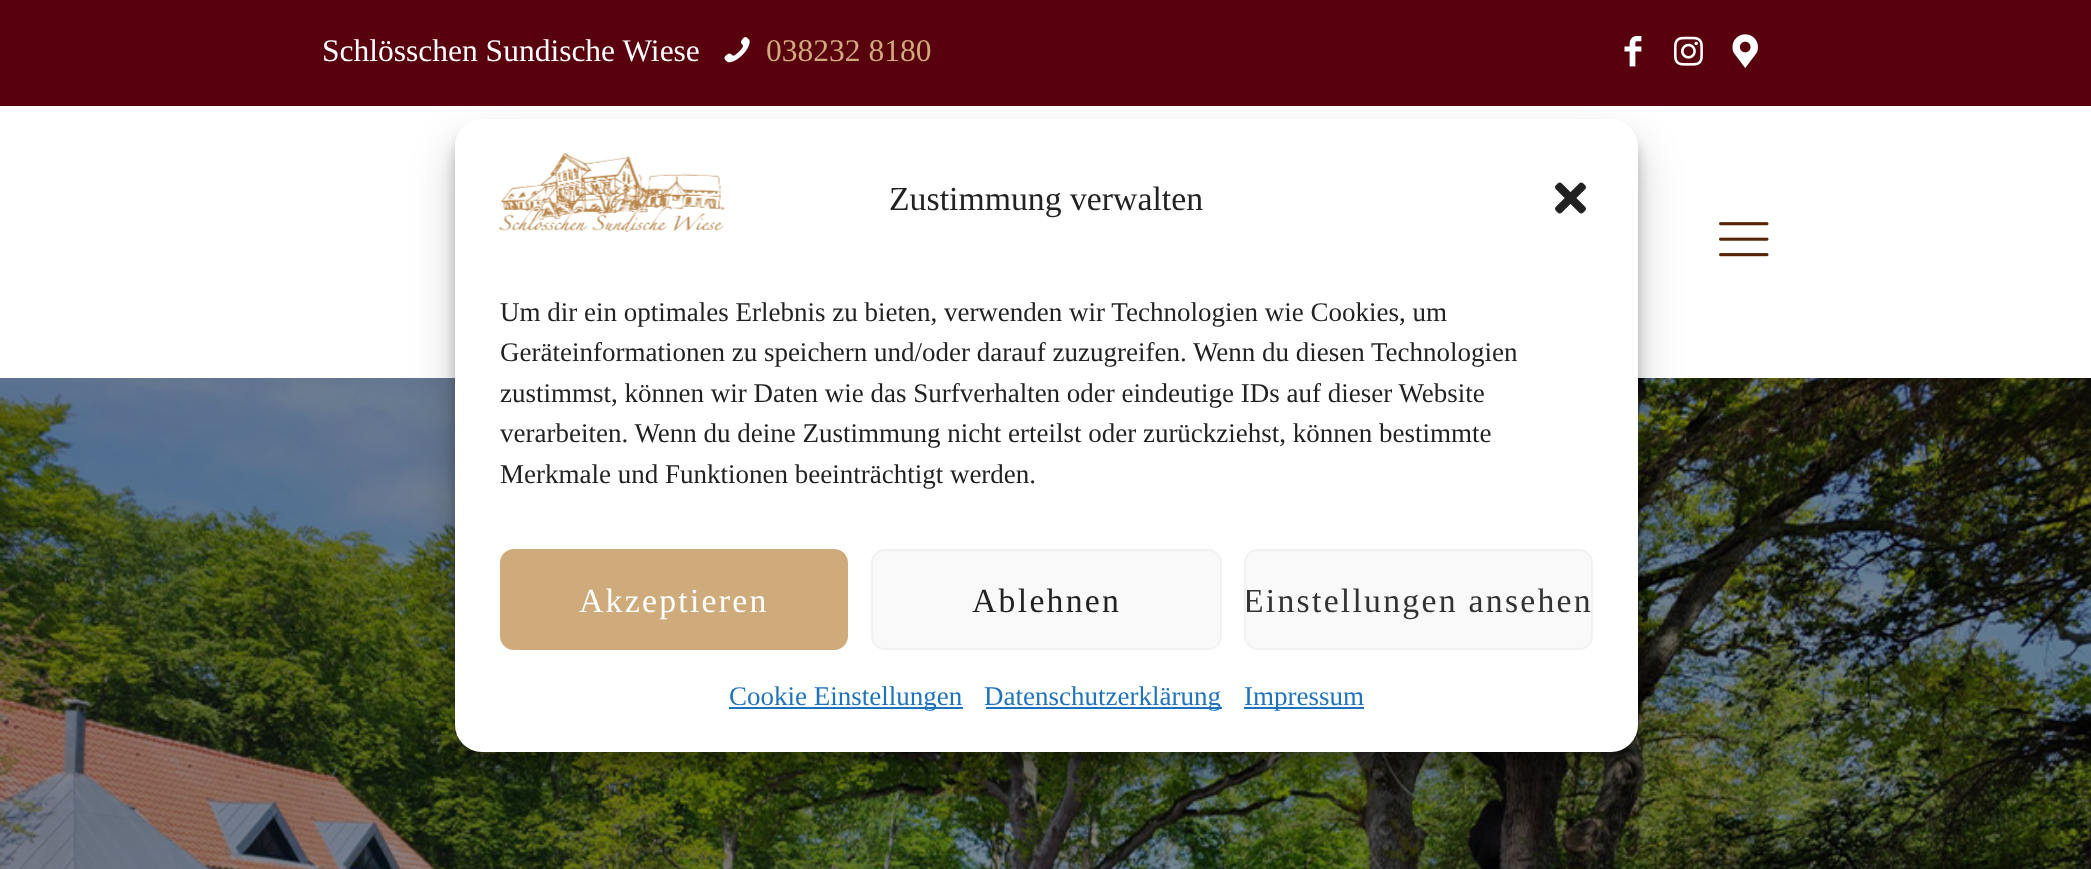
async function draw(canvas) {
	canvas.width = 2091;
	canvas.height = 869;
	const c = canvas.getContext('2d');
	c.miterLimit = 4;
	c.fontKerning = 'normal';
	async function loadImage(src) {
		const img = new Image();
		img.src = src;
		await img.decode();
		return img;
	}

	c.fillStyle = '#fff';
	c.fillRect(0, 0, 2091, 869);
	c.fillStyle = '#59000e';
	c.fillRect(0, 0, 2091, 106);
	c.font = '31.5px Liberation Serif';
	c.fillStyle = '#fff';
	c.fillText('Schlösschen Sundische Wiese', 322, 61);
	c.drawImage(await loadImage('img1.png'), 724, 37, 26, 26);
	c.fillStyle = '#cfab7b';
	c.fillText('038232 8180', 766, 61);
	c.drawImage(await loadImage('img2.png'), 1624, 36, 18, 31);
	c.drawImage(await loadImage('img3.png'), 1674, 36, 29, 30);
	c.drawImage(await loadImage('img4.png'), 1732, 34, 26, 34);
	c.drawImage(await loadImage('img5.png'), 1719, 222, 50, 35);
	c.drawImage(await loadImage('img6.png'), 0, 378, 2091, 491);
	c.fillStyle = '#0000003b';
	c.filter = 'blur(7px)';
	c.beginPath();
	c.roundRect(455, 133, 1183, 632, 27);
	c.fill();
	c.filter = 'none';
	c.fillStyle = '#00000030';
	c.filter = 'blur(22.5px)';
	c.beginPath();
	c.roundRect(455, 142, 1183, 632, 27);
	c.fill();
	c.filter = 'none';
	c.fillStyle = '#fff';
	c.beginPath();
	c.roundRect(455, 119, 1183, 633, 27);
	c.fill();
	c.drawImage(await loadImage('img7.png'), 499, 152, 226, 80);
	c.font = '33.75px Liberation Serif';
	c.fillStyle = '#222';
	c.fillText('Zustimmung verwalten', 889, 210);
	c.drawImage(await loadImage('img8.png'), 1555, 182, 31, 32);
	c.font = '27px Liberation Serif';
	for (const [text, x, y] of [
		['Um dir ein optimales Erlebnis zu bieten, verwenden wir Technologien wie Cookies, um', 500, 321],
		['Geräteinformationen zu speichern und/oder darauf zuzugreifen. Wenn du diesen Technologien', 500, 361],
		['zustimmst, können wir Daten wie das Surfverhalten oder eindeutige IDs auf dieser Website', 500, 402],
		['verarbeiten. Wenn du deine Zustimmung nicht erteilst oder zurückziehst, können bestimmte', 500, 442],
		['Merkmale und Funktionen beeinträchtigt werden.', 500, 483],
	]) {
		c.fillText(text, x, y);
	}
	c.fillStyle = '#cfab7b';
	c.beginPath();
	c.roundRect(501, 550, 346, 99, 13);
	c.fill();
	c.strokeStyle = '#cfab7b';
	c.lineWidth = 2;
	c.stroke();
	c.letterSpacing = '2.25px';
	c.font = '33.75px Liberation Serif';
	c.fillStyle = '#fff';
	c.fillText('Akzeptieren', 579, 612);
	c.fillStyle = '#f9f9f9';
	c.beginPath();
	c.roundRect(872, 550, 349, 99, 13);
	c.fill();
	c.strokeStyle = '#f2f2f2';
	c.stroke();
	c.fillStyle = '#222';
	c.fillText('Ablehnen', 972, 612);
	c.fillStyle = '#f9f9f9';
	c.beginPath();
	c.roundRect(1245, 550, 347, 99, 13);
	c.fill();
	c.stroke();
	c.save();
	c.beginPath();
	c.roundRect(1247, 551, 344, 97, 11);
	c.clip();
	c.fillStyle = '#333';
	c.fillText('Einstellungen ansehen', 1243, 612);
	c.restore();
	c.fillStyle = '#1e73be';
	c.fillRect(729, 707, 234, 2);
	c.letterSpacing = '0px';
	c.font = '27px Liberation Serif';
	c.fillText('Cookie Einstellungen', 729, 705);
	c.fillRect(986, 707, 236, 2);
	c.fillText('Datenschutzerklärung', 984, 705);
	c.fillRect(1244, 707, 120, 2);
	c.fillText('Impressum', 1244, 705);
}

draw(document.querySelector('canvas'));
